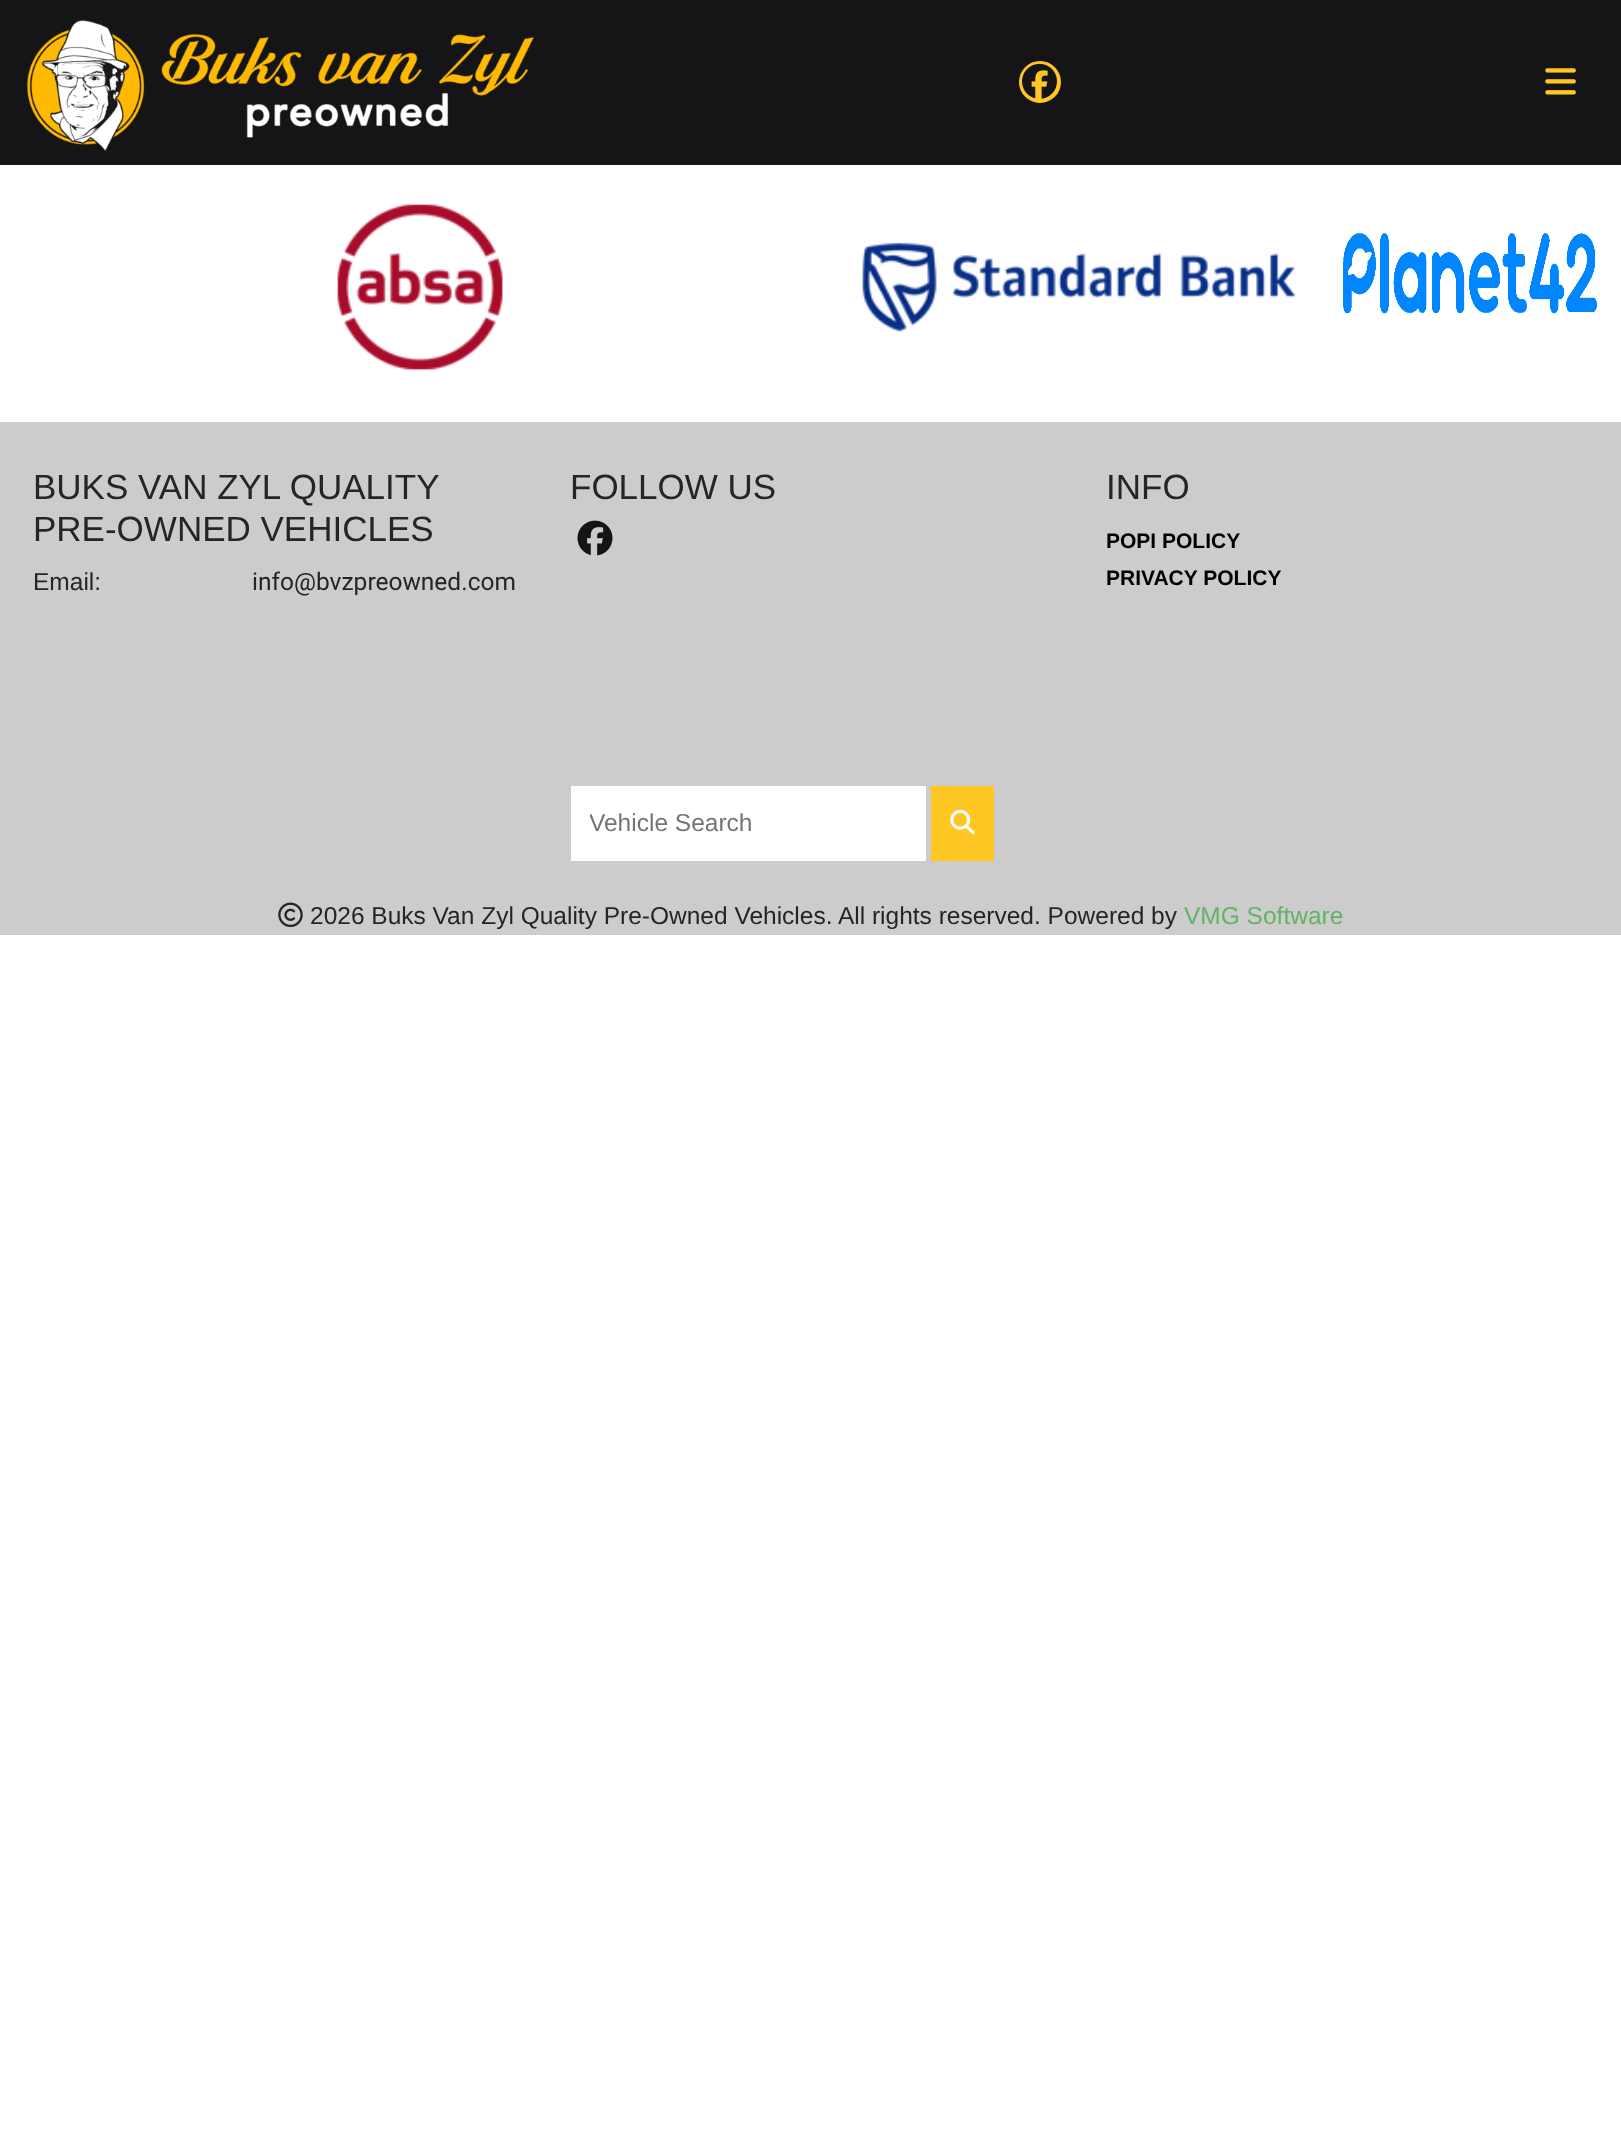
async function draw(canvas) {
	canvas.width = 1621;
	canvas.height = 2145;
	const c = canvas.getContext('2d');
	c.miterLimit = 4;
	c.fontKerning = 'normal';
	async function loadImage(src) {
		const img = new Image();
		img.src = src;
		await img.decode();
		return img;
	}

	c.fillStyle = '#fff';
	c.fillRect(0, 0, 1621, 2145);
	c.fillStyle = '#151517';
	c.fillRect(0, 0, 1621, 165);
	c.drawImage(await loadImage('img1.png'), 26, 20, 508, 132);
	c.fillStyle = '#ffc723';
	c.beginPath();
	c.arc(1040, 82, 19, 0, 2 * Math.PI);
	c.fill();
	c.strokeStyle = '#ffc723';
	c.lineWidth = 4;
	c.stroke();
	c.drawImage(await loadImage('img2.png'), 1022, 63, 35, 36);
	c.drawImage(await loadImage('img3.png'), 1545, 68, 31, 27);
	c.drawImage(await loadImage('img4.png'), 337, 204, 166, 166);
	c.drawImage(await loadImage('img5.png'), 862, 242, 434, 90);
	c.drawImage(await loadImage('img6.png'), 1343, 233, 254, 81);
	c.fillStyle = '#ccc';
	c.fillRect(0, 422, 1621, 513);
	c.font = '35px Liberation Sans';
	c.fillStyle = '#232628';
	c.fillText('BUKS VAN ZYL QUALITY', 33, 499);
	c.fillText('PRE-OWNED VEHICLES', 33, 541);
	c.font = '24.5px Liberation Sans';
	c.fillText('Email:', 33, 590);
	c.font = '24.5px Roboto';
	c.fillText('info@bvzpreowned.com', 252, 590);
	c.font = '35px Liberation Sans';
	c.fillText('FOLLOW US', 570, 499);
	c.drawImage(await loadImage('img7.png'), 577, 520, 36, 36);
	c.fillText('INFO', 1106, 499);
	c.font = 'bold 21px Liberation Sans';
	c.fillStyle = '#000';
	c.fillText('POPI POLICY', 1106, 548);
	c.fillText('PRIVACY POLICY', 1106, 585);
	c.fillStyle = '#fff';
	c.fillRect(571, 786, 355, 75);
	c.save();
	c.beginPath();
	c.rect(590, 809, 317, 28);
	c.clip();
	c.font = '24.5px Liberation Sans';
	c.fillStyle = '#757575';
	c.fillText('Vehicle Search', 589, 831);
	c.restore();
	c.fillStyle = '#ffc723';
	c.fillRect(931, 786, 63, 75);
	c.drawImage(await loadImage('img8.png'), 950, 809, 25, 26);
	c.drawImage(await loadImage('img9.png'), 278, 902, 25, 26);
	c.font = '24.5px Liberation Sans';
	c.fillStyle = '#232628';
	c.fillText('2026 Buks Van Zyl Quality Pre-Owned Vehicles. All rights reserved. Powered by', 310, 924);
	c.fillStyle = '#66b266';
	c.fillText('VMG Software', 1184, 924);
}

draw(document.querySelector('canvas'));
